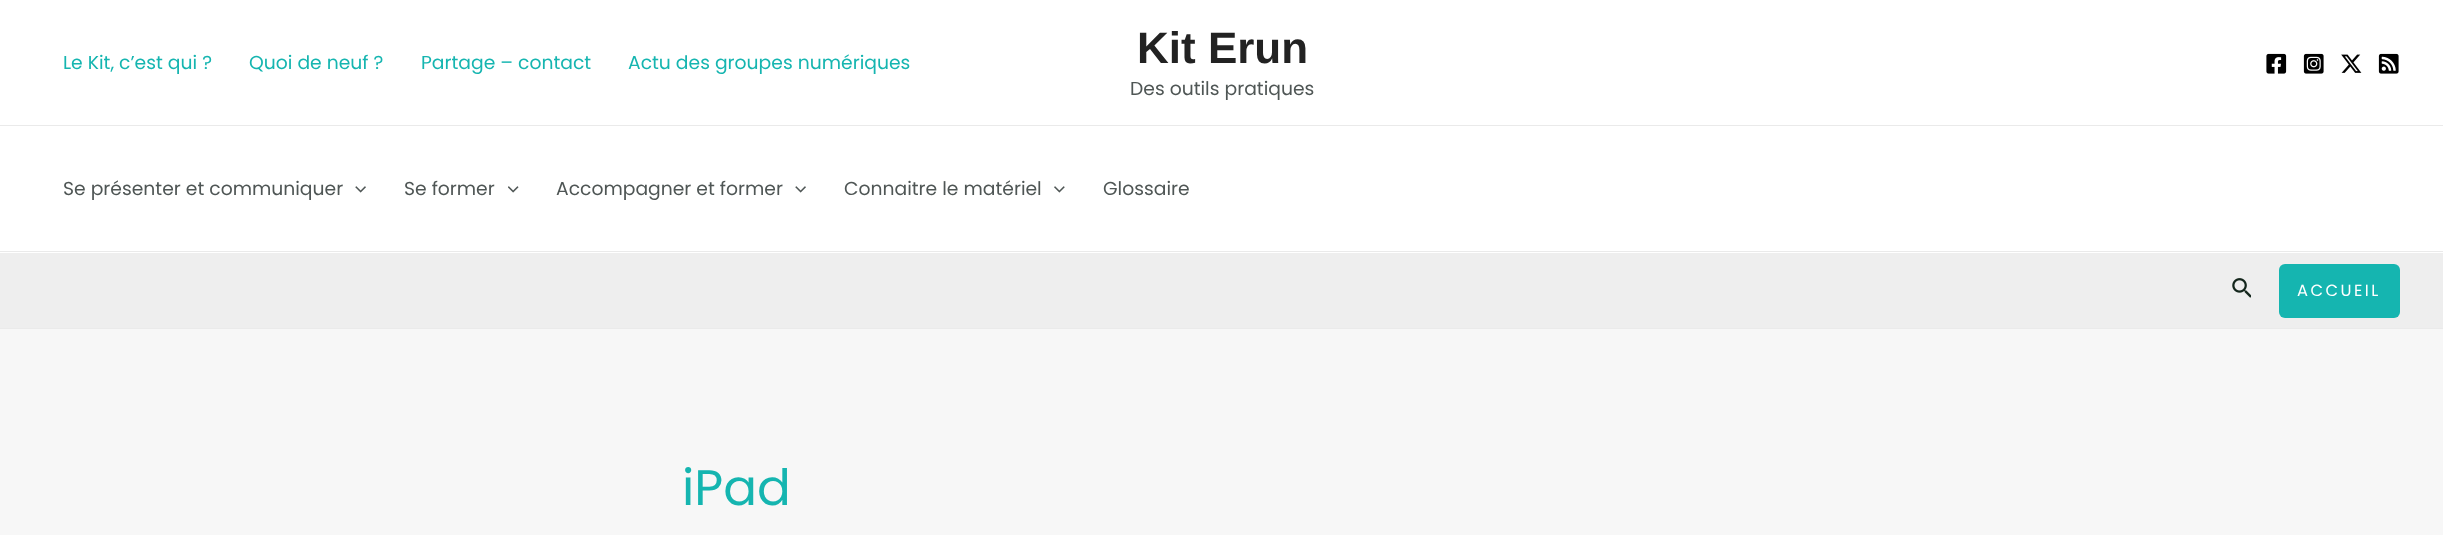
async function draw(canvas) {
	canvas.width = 2443;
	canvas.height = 535;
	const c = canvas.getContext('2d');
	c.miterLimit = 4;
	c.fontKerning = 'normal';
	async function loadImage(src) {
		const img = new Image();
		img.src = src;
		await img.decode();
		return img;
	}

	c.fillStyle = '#f7f7f7';
	c.fillRect(0, 0, 2443, 535);
	c.fillStyle = '#fff';
	c.fillRect(0, 0, 2443, 125);
	c.fillStyle = '#eaeaea';
	c.fillRect(0, 125, 2443, 1);
	c.font = '18.75px Poppins';
	c.fillStyle = '#15b5b0';
	for (const [text, x, y] of [
		['Le Kit, c’est qui ?', 63, 69],
		['Quoi de neuf ?', 249, 69],
		['Partage – contact', 421, 69],
		['Actu des groupes numériques', 628, 69],
	]) {
		c.fillText(text, x, y);
	}
	c.font = 'bold 44px Liberation Sans';
	c.fillStyle = '#222';
	c.fillText('Kit Erun', 1137, 63);
	c.font = '18.75px Poppins';
	c.fillStyle = '#4f5655';
	c.fillText('Des outils pratiques', 1130, 95);
	c.drawImage(await loadImage('img1.png'), 2266, 53, 21, 21);
	c.drawImage(await loadImage('img2.png'), 2303, 53, 21, 21);
	c.drawImage(await loadImage('img3.png'), 2341, 54, 21, 19);
	c.drawImage(await loadImage('img4.png'), 2378, 53, 21, 21);
	c.fillStyle = '#fff';
	c.fillRect(0, 126, 2443, 127);
	c.fillStyle = '#eaeaea';
	c.fillRect(0, 251, 2443, 1);
	c.fillStyle = '#4f5655';
	c.fillText('Se présenter et communiquer', 63, 195);
	c.drawImage(await loadImage('img5.png'), 355, 186, 11, 7);
	c.fillText('Se former', 404, 195);
	c.drawImage(await loadImage('img6.png'), 508, 186, 11, 7);
	c.fillText('Accompagner et former', 556, 195);
	c.drawImage(await loadImage('img5.png'), 795, 186, 11, 7);
	c.fillText('Connaitre le matériel', 844, 195);
	c.drawImage(await loadImage('img7.png'), 1054, 186, 11, 7);
	c.fillText('Glossaire', 1103, 195);
	c.fillStyle = '#eee';
	c.fillRect(0, 253, 2443, 75);
	c.fillStyle = '#eaeaea';
	c.fillRect(0, 328, 2443, 1);
	c.drawImage(await loadImage('img8.png'), 2232, 278, 19, 20);
	c.fillStyle = '#15b5b0';
	c.beginPath();
	c.roundRect(2279, 264, 121, 54, 6);
	c.fill();
	c.letterSpacing = '2.5px';
	c.font = '16.25px Poppins';
	c.fillStyle = '#fff';
	c.fillText('ACCUEIL', 2297, 296);
	c.letterSpacing = '0px';
	c.font = '50px Poppins';
	c.fillStyle = '#15b5b0';
	c.fillText('iPad', 682, 505);
}

draw(document.querySelector('canvas'));
